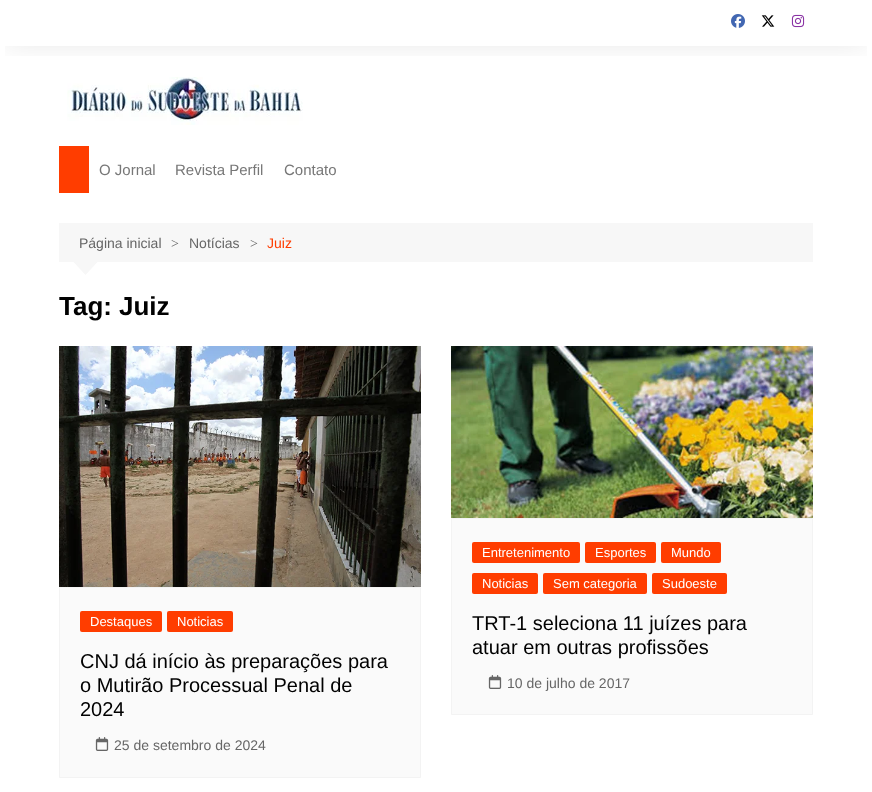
async function draw(canvas) {
	canvas.width = 872;
	canvas.height = 792;
	const c = canvas.getContext('2d');
	c.miterLimit = 4;
	c.fontKerning = 'normal';
	async function loadImage(src) {
		const img = new Image();
		img.src = src;
		await img.decode();
		return img;
	}

	c.fillStyle = '#fff';
	c.fillRect(0, 0, 872, 792);
	c.save();
	c.beginPath();
	c.rect(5, 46, 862, 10);
	c.clip();
	c.fillStyle = '#0000001a';
	c.filter = 'blur(15px)';
	c.beginPath();
	c.rect(5, 7, 862, 36);
	c.fill();
	c.filter = 'none';
	c.restore();
	c.drawImage(await loadImage('img1.png'), 731, 14, 14, 14);
	c.drawImage(await loadImage('img2.png'), 761, 15, 14, 12);
	c.drawImage(await loadImage('img3.png'), 791, 14, 14, 14);
	c.drawImage(await loadImage('img4.png'), 67, 77, 236, 48);
	c.fillStyle = '#ff3d00';
	c.fillRect(59, 146, 30, 47);
	c.font = '15px Liberation Sans';
	c.fillStyle = '#777';
	for (const [text, x, y] of [
		['O Jornal', 99, 175],
		['Revista Perfil', 175, 175],
		['Contato', 284, 175],
	]) {
		c.fillText(text, x, y);
	}
	c.fillStyle = '#f7f7f7';
	c.fillRect(59, 223, 754, 39);
	c.font = '14px Liberation Sans';
	c.fillStyle = '#666';
	c.fillText('Página inicial', 79, 248);
	c.font = '14px Liberation Serif';
	c.fillText('>', 171, 248);
	c.font = '14px Liberation Sans';
	c.fillText('Notícias', 189, 248);
	c.font = '14px Liberation Serif';
	c.fillText('>', 250, 248);
	c.font = '14px Liberation Sans';
	c.fillStyle = '#ff3d00';
	c.fillText('Juiz', 267, 248);
	c.fillStyle = '#f7f7f7';
	c.beginPath();
	c.moveTo(73.5, 262);
	c.lineTo(97.5, 262);
	c.lineTo(85.5, 275);
	c.closePath();
	c.fill();
	c.save();
	c.beginPath();
	c.rect(59, 292, 754, 29);
	c.clip();
	c.font = 'bold 26px Liberation Sans';
	c.fillStyle = '#010101';
	c.fillText('Tag:', 59, 315);
	c.restore();
	c.font = 'bold 26px Liberation Sans';
	c.fillStyle = '#010101';
	c.fillText('Juiz', 119, 315);
	c.drawImage(await loadImage('img5.png'), 59, 346, 362, 241);
	c.fillStyle = '#fafafa';
	c.beginPath();
	c.rect(59.5, 587.5, 361, 190);
	c.fill();
	c.strokeStyle = '#f3f3f3';
	c.stroke();
	c.fillStyle = '#ff3d00';
	c.beginPath();
	c.roundRect(80, 611, 82, 21, 2);
	c.fill();
	c.font = '13px Liberation Sans';
	c.fillStyle = '#fff';
	c.fillText('Destaques', 90, 626);
	c.fillStyle = '#ff3d00';
	c.beginPath();
	c.roundRect(167, 611, 66, 21, 2);
	c.fill();
	c.fillStyle = '#fff';
	c.fillText('Noticias', 177, 626);
	c.font = '20px Liberation Sans';
	c.fillStyle = '#010101';
	for (const [text, x, y] of [
		['CNJ dá início às preparações para', 80, 668],
		['o Mutirão Processual Penal de', 80, 692],
		['2024', 80, 716],
	]) {
		c.fillText(text, x, y);
	}
	c.drawImage(await loadImage('img6.png'), 95, 737, 14, 14);
	c.font = '14px Liberation Sans';
	c.fillStyle = '#666';
	c.fillText('25 de setembro de 2024', 114, 750);
	c.drawImage(await loadImage('img7.png'), 451, 346, 362, 172);
	c.fillStyle = '#fafafa';
	c.beginPath();
	c.rect(451.5, 518.5, 361, 196);
	c.fill();
	c.stroke();
	c.fillStyle = '#ff3d00';
	c.beginPath();
	c.roundRect(472, 542, 108, 21, 2);
	c.fill();
	c.font = '13px Liberation Sans';
	c.fillStyle = '#fff';
	c.fillText('Entretenimento', 482, 557);
	c.fillStyle = '#ff3d00';
	c.beginPath();
	c.roundRect(585, 542, 71, 21, 2);
	c.fill();
	c.fillStyle = '#fff';
	c.fillText('Esportes', 595, 557);
	c.fillStyle = '#ff3d00';
	c.beginPath();
	c.roundRect(661, 542, 60, 21, 2);
	c.fill();
	c.fillStyle = '#fff';
	c.fillText('Mundo', 671, 557);
	c.fillStyle = '#ff3d00';
	c.beginPath();
	c.roundRect(472, 573, 66, 21, 2);
	c.fill();
	c.fillStyle = '#fff';
	c.fillText('Noticias', 482, 588);
	c.fillStyle = '#ff3d00';
	c.beginPath();
	c.roundRect(543, 573, 104, 21, 2);
	c.fill();
	c.fillStyle = '#fff';
	c.fillText('Sem categoria', 553, 588);
	c.fillStyle = '#ff3d00';
	c.beginPath();
	c.roundRect(652, 573, 75, 21, 2);
	c.fill();
	c.fillStyle = '#fff';
	c.fillText('Sudoeste', 662, 588);
	c.font = '20px Liberation Sans';
	c.fillStyle = '#010101';
	c.fillText('TRT-1 seleciona 11 juízes para', 472, 630);
	c.fillText('atuar em outras profissões', 472, 654);
	c.drawImage(await loadImage('img6.png'), 488, 675, 14, 14);
	c.font = '14px Liberation Sans';
	c.fillStyle = '#666';
	c.fillText('10 de julho de 2017', 507, 688);
}

draw(document.querySelector('canvas'));
